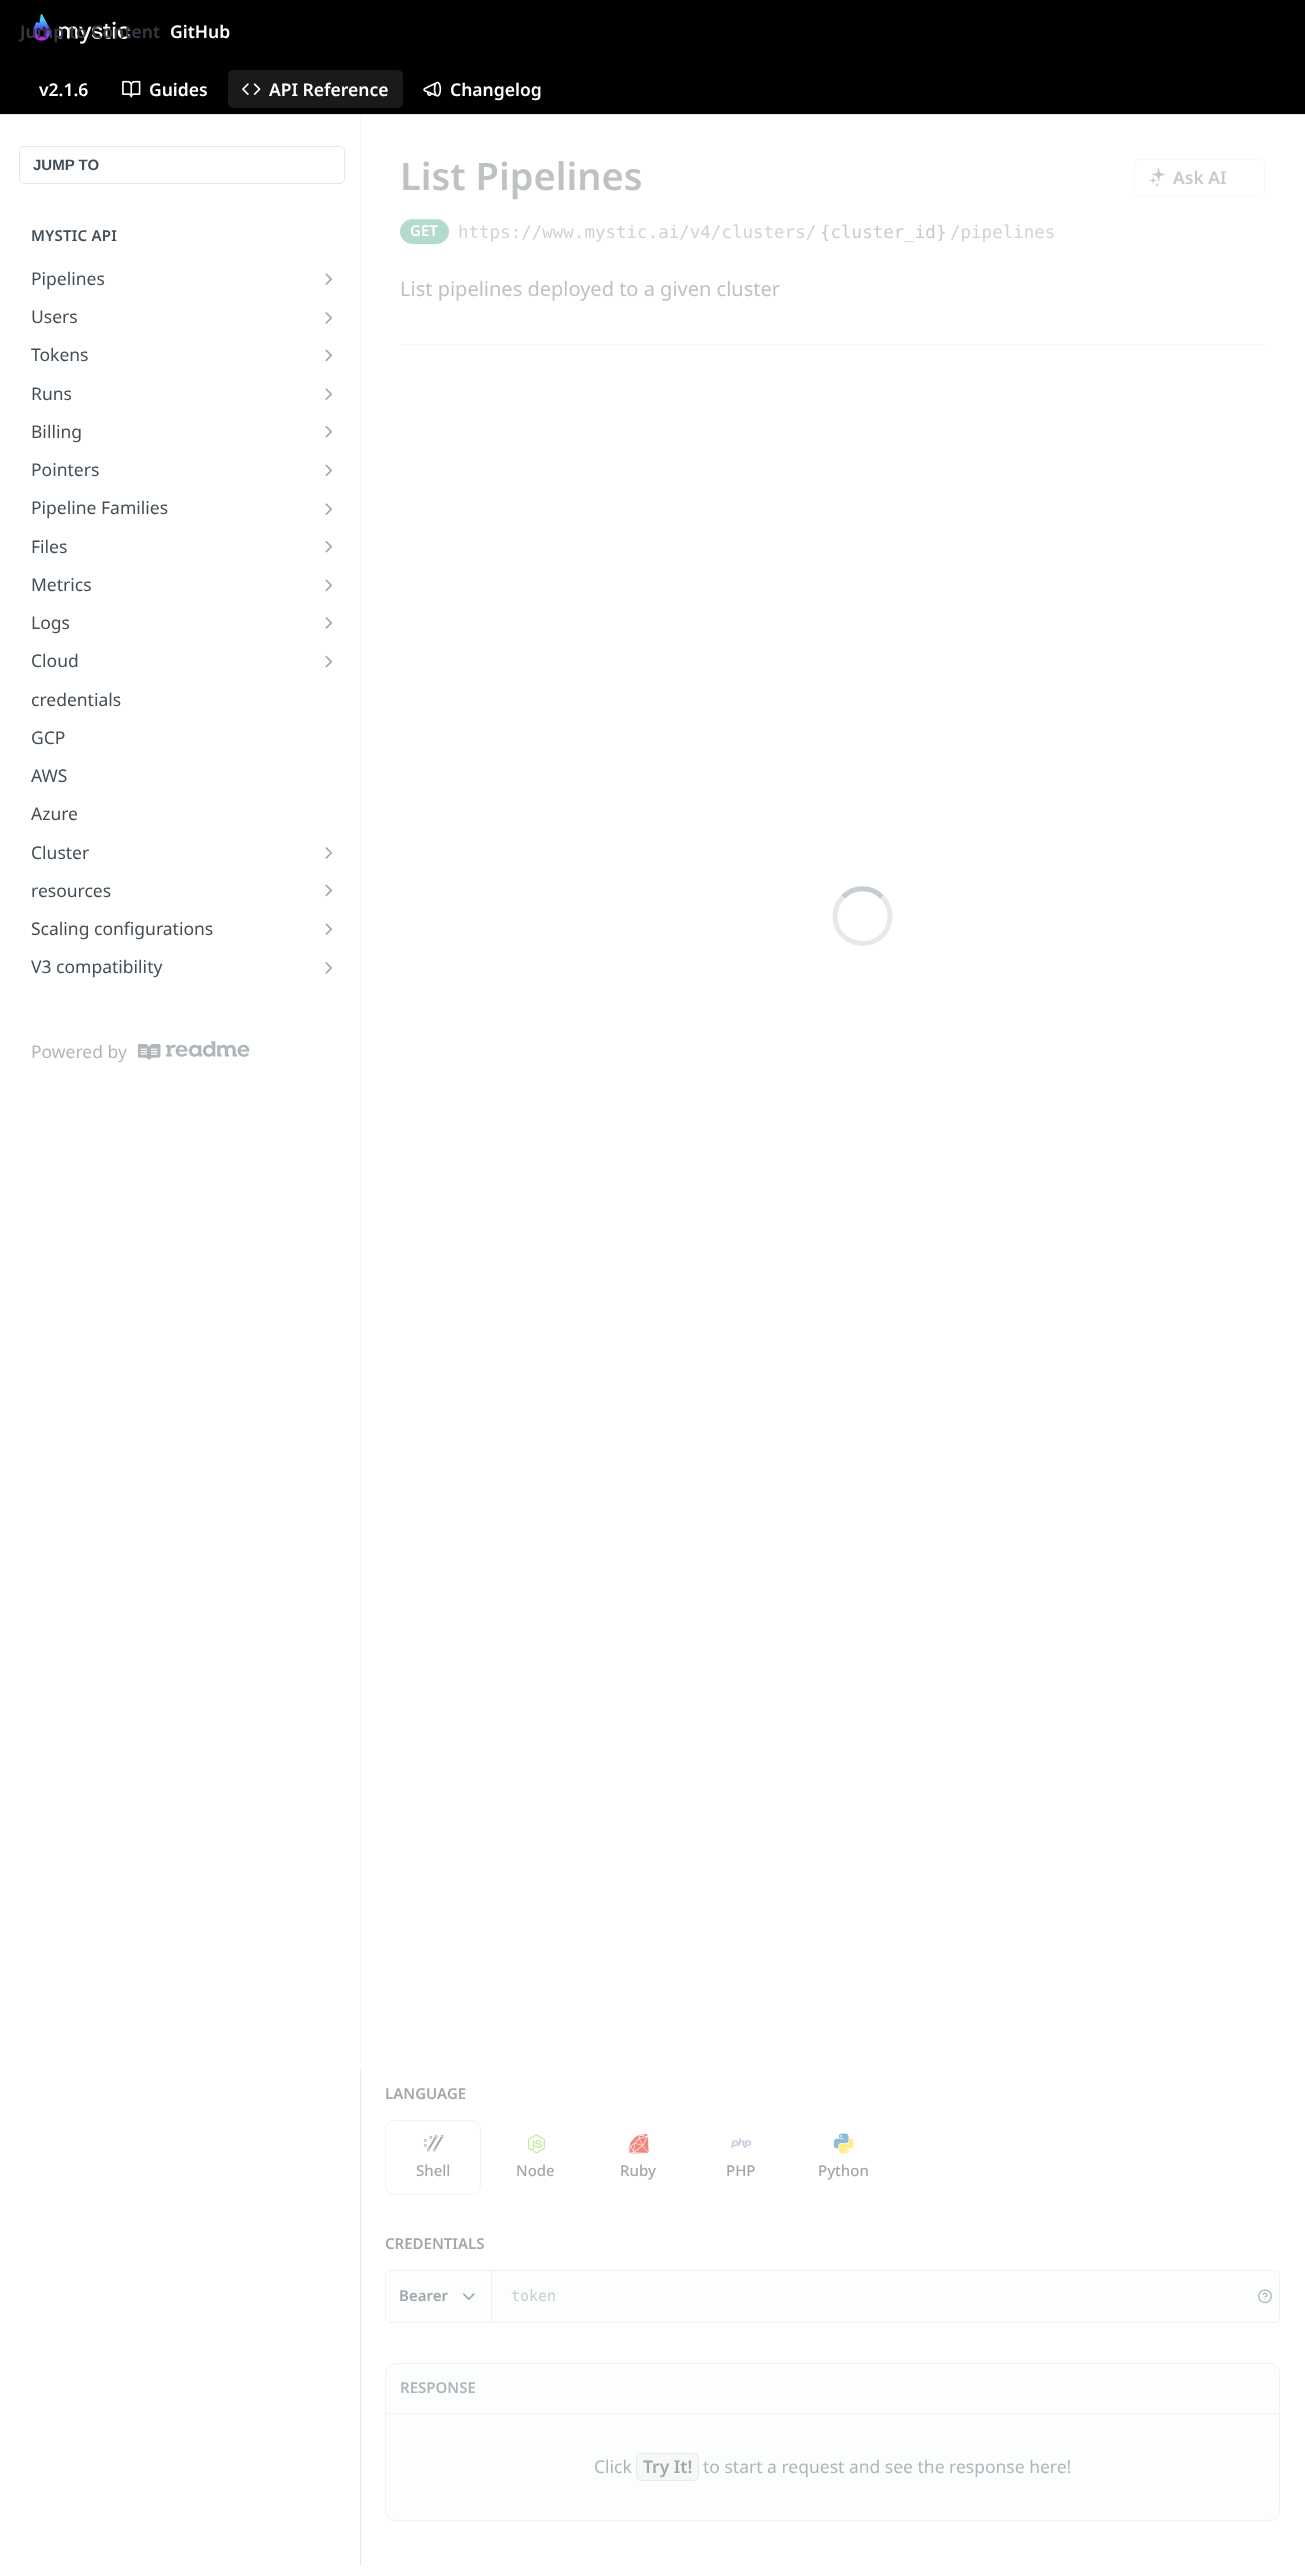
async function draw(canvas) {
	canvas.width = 1305;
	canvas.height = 2575;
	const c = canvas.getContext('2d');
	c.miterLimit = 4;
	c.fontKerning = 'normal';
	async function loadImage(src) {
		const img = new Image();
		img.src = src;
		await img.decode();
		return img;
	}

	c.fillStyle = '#fff';
	c.fillRect(0, 0, 1305, 2575);
	c.fillStyle = '#e6e6e6';
	c.fillRect(0, 114, 1305, 1);
	c.fillStyle = '#000';
	c.fillRect(0, 0, 1305, 114);
	c.drawImage(await loadImage('img1.png'), 33, 14, 97, 30);
	c.font = '600 17.5px Noto Sans';
	c.fillStyle = '#3c3745';
	c.fillText('Jump to Content', 20, 38);
	c.fillStyle = '#fff';
	c.fillText('GitHub', 170, 38);
	c.fillText('v2.1.6', 39, 96);
	c.drawImage(await loadImage('img2.png'), 122, 80, 19, 18);
	c.fillText('Guides', 149, 96);
	c.fillStyle = '#1a1a1a';
	c.beginPath();
	c.roundRect(228, 70, 175, 38, 5);
	c.fill();
	c.drawImage(await loadImage('img3.png'), 242, 83, 19, 12);
	c.fillStyle = '#fff';
	c.fillText('API Reference', 269, 96);
	c.drawImage(await loadImage('img4.png'), 423, 81, 19, 16);
	c.fillText('Changelog', 450, 96);
	for (const [x, y, w, h, color] of [
		[360, 2070, 1, 496, '#e6e6e6'],
		[360, 114, 1, 1956, '#f8f8f8'],
		[360, 114, 1, 1, '#dfdfdf'],
	]) {
		c.fillStyle = color;
		c.fillRect(x, y, w, h);
	}
	c.beginPath();
	c.roundRect(19.5, 146.5, 325, 37, 4.5);
	c.strokeStyle = '#e6e6e6';
	c.stroke();
	c.font = 'bold 15px Liberation Sans';
	c.fillStyle = '#434e56';
	c.fillText('JUMP TO', 33, 170);
	c.letterSpacing = '0.25px';
	c.font = '600 15px Noto Sans';
	c.fillText('MYSTIC API', 31, 241);
	c.letterSpacing = '0px';
	c.font = '17.5px Noto Sans';
	c.fillText('Pipelines', 31, 285);
	c.drawImage(await loadImage('img5.png'), 325, 273, 7, 12);
	c.fillText('Users', 31, 323);
	c.drawImage(await loadImage('img6.png'), 325, 312, 7, 12);
	c.fillText('Tokens', 31, 361);
	c.drawImage(await loadImage('img7.png'), 325, 349, 7, 13);
	c.fillText('Runs', 31, 400);
	c.drawImage(await loadImage('img5.png'), 325, 388, 7, 12);
	c.fillText('Billing', 31, 438);
	c.drawImage(await loadImage('img8.png'), 325, 425, 7, 13);
	c.fillText('Pointers', 31, 476);
	c.drawImage(await loadImage('img7.png'), 325, 464, 7, 13);
	c.fillText('Pipeline Families', 31, 514);
	c.drawImage(await loadImage('img5.png'), 325, 503, 7, 12);
	c.fillText('Files', 31, 553);
	c.drawImage(await loadImage('img8.png'), 325, 540, 7, 13);
	c.fillText('Metrics', 31, 591);
	c.drawImage(await loadImage('img7.png'), 325, 579, 7, 13);
	c.fillText('Logs', 31, 629);
	c.drawImage(await loadImage('img6.png'), 325, 617, 7, 12);
	c.fillText('Cloud', 31, 667);
	c.drawImage(await loadImage('img8.png'), 325, 655, 7, 13);
	for (const [text, x, y] of [
		['credentials', 31, 706],
		['GCP', 31, 744],
		['AWS', 31, 782],
		['Azure', 31, 820],
		['Cluster', 31, 859],
	]) {
		c.fillText(text, x, y);
	}
	c.drawImage(await loadImage('img6.png'), 325, 847, 7, 12);
	c.fillText('resources', 31, 897);
	c.drawImage(await loadImage('img7.png'), 325, 884, 7, 13);
	c.fillText('Scaling configurations', 31, 935);
	c.drawImage(await loadImage('img5.png'), 325, 923, 7, 12);
	c.fillText('V3 compatibility', 31, 973);
	c.drawImage(await loadImage('img6.png'), 325, 962, 7, 12);
	c.fillStyle = '#aeb6bc';
	c.fillText('Powered by', 31, 1058);
	c.drawImage(await loadImage('img9.png'), 138, 1041, 112, 19);
	c.fillStyle = '#f8f8f8';
	c.fillRect(400, 344, 865, 1);
	c.font = '600 38px Noto Sans';
	c.fillStyle = '#bfc2c4';
	c.fillText('List Pipelines', 400, 190);
	c.beginPath();
	c.roundRect(1134.5, 159.5, 130, 36, 4.5);
	c.strokeStyle = '#f8f8f8';
	c.stroke();
	c.drawImage(await loadImage('img10.png'), 1149, 168, 17, 19);
	c.font = '600 17.5px Noto Sans';
	c.fillStyle = '#c7cacc';
	c.fillText('Ask AI', 1173, 184);
	c.fillStyle = '#b3dbcc';
	c.beginPath();
	c.roundRect(400, 219, 49, 25, 12.5);
	c.fill();
	c.fillStyle = '#ffffff33';
	c.beginPath();
	c.moveTo(412, 220);
	c.lineTo(436, 220);
	c.bezierCurveTo(443, 220, 449, 226, 449, 232);
	c.bezierCurveTo(449, 217, 434, 219, 424, 219);
	c.bezierCurveTo(415, 219, 400, 217, 400, 232);
	c.bezierCurveTo(400, 226, 406, 220, 412, 220);
	c.closePath();
	c.fill();
	c.font = '600 15px Noto Sans';
	c.fillStyle = '#fff';
	c.fillText('GET', 410, 236);
	c.font = '17.5px DejaVu Sans Mono';
	c.fillStyle = '#ced3d7';
	c.fillText('https://www.mystic.ai/v4/clusters/', 458, 238);
	c.fillStyle = '#c7cacc';
	c.fillText('{cluster_id}', 820, 238);
	c.fillStyle = '#ced3d7';
	c.fillText('/pipelines', 950, 238);
	c.font = '20px Noto Sans';
	c.fillStyle = '#bfc2c4';
	c.fillText('List pipelines deployed to a given cluster', 400, 296);
	c.beginPath();
	c.moveTo(843, 897);
	c.bezierCurveTo(853.5, 886, 871.5, 886, 882, 897);
	c.strokeStyle = '#c5cdd3';
	c.lineWidth = 5;
	c.stroke();
	c.beginPath();
	c.moveTo(882, 897);
	c.bezierCurveTo(888.5, 903, 891.5, 912.5, 889.5, 921.5);
	c.bezierCurveTo(883, 954, 835, 949, 835, 916);
	c.bezierCurveTo(835, 909, 838, 902, 843, 897);
	c.strokeStyle = '#e5e9eb';
	c.stroke();
	c.font = '600 15px Noto Sans';
	c.fillStyle = '#a1a7ab';
	c.fillText('LANGUAGE', 385, 2099);
	c.beginPath();
	c.roundRect(385.5, 2120.5, 95, 74, 9.5);
	c.strokeStyle = '#f2f2f2';
	c.lineWidth = 1;
	c.stroke();
	c.drawImage(await loadImage('img11.png'), 423, 2134, 21, 18);
	c.font = '500 15px Noto Sans';
	c.fillText('Shell', 416, 2176);
	c.drawImage(await loadImage('img12.png'), 528, 2134, 17, 20);
	c.fillText('Node', 516, 2176);
	c.drawImage(await loadImage('img13.png'), 628, 2133, 21, 21);
	c.fillText('Ruby', 620, 2176);
	c.drawImage(await loadImage('img14.png'), 731, 2138, 21, 10);
	c.fillText('PHP', 726, 2176);
	c.drawImage(await loadImage('img15.png'), 833, 2133, 16, 16);
	c.drawImage(await loadImage('img16.png'), 838, 2138, 16, 16);
	c.fillText('Python', 818, 2176);
	c.font = '600 15px Noto Sans';
	c.fillText('CREDENTIALS', 385, 2249);
	c.fillStyle = '#fcfdfd';
	c.beginPath();
	c.roundRect(385.5, 2270.5, 894, 52, 4.5);
	c.fill();
	c.strokeStyle = '#f0f1f1';
	c.stroke();
	c.fillStyle = '#f0f1f1';
	c.fillRect(491, 2271, 1, 50);
	c.fillStyle = '#a1a7ab';
	c.fillText('Bearer', 399, 2301);
	c.drawImage(await loadImage('img17.png'), 463, 2293, 12, 7);
	c.font = '15px DejaVu Sans Mono';
	c.fillStyle = '#c6cdd3';
	c.fillText('token', 511, 2301);
	c.drawImage(await loadImage('img18.png'), 1258, 2289, 14, 15);
	c.fillStyle = '#fcfdfd';
	c.beginPath();
	c.roundRect(385.5, 2363.5, 894, 157, 9.5);
	c.fill();
	c.stroke();
	c.fillStyle = '#f0f1f1';
	c.fillRect(386, 2413, 893, 1);
	c.font = '600 15px Noto Sans';
	c.fillStyle = '#aeb6bc';
	c.fillText('RESPONSE', 400, 2393);
	c.font = '17.5px Noto Sans';
	c.fillText('Click', 594, 2473);
	c.fillStyle = '#f6f7f7';
	c.beginPath();
	c.roundRect(636, 2453, 63, 28, 5);
	c.fill();
	c.beginPath();
	c.roundRect(636.5, 2453.5, 62, 27, 4.5);
	c.strokeStyle = '#8080801a';
	c.stroke();
	c.font = '600 17.5px Noto Sans';
	c.fillStyle = '#a1a7ab';
	c.fillText('Try It!', 643, 2473);
	c.font = '17.5px Noto Sans';
	c.fillStyle = '#aeb6bc';
	c.fillText('to start a request and see the response here!', 703, 2473);
}

draw(document.querySelector('canvas'));
